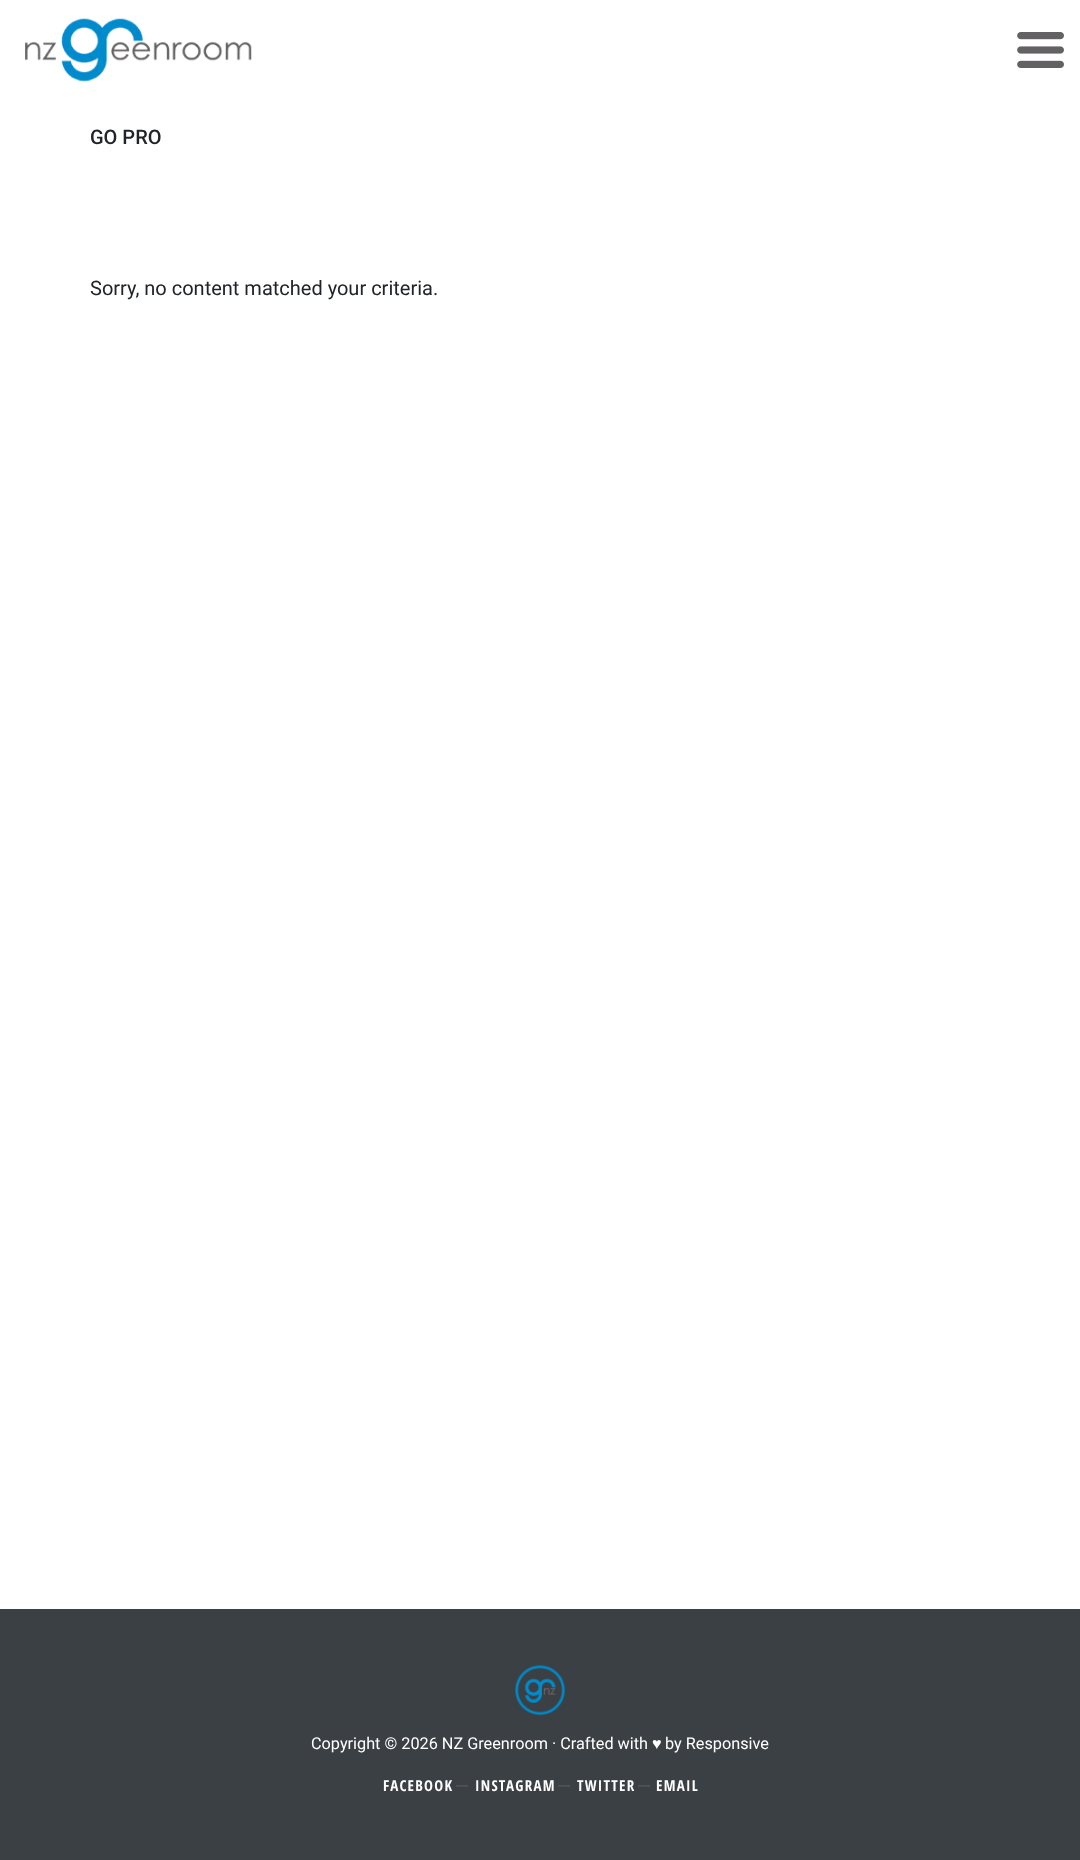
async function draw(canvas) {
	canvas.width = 1080;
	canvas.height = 1860;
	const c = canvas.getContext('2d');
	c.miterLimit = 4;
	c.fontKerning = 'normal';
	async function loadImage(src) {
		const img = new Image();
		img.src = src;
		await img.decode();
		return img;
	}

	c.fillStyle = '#fff';
	c.fillRect(0, 0, 1080, 1860);
	c.drawImage(await loadImage('img1.png'), 25, 18, 227, 64);
	c.drawImage(await loadImage('img2.png'), 1017, 32, 47, 36);
	c.font = '500 20px Roboto';
	c.fillStyle = '#212529';
	c.fillText('GO PRO', 90, 144);
	c.font = '20px Roboto';
	c.fillText('Sorry, no content matched your criteria.', 90, 295);
	c.fillStyle = '#3b4045';
	c.fillRect(0, 1609, 1080, 251);
	c.drawImage(await loadImage('img3.png'), 514, 1665, 52, 51);
	c.font = '16.25px Roboto';
	c.fillStyle = '#fff';
	c.fillText('Copyright © 2026 NZ Greenroom · Crafted with', 311, 1749);
	c.font = '16.25px Liberation Sans';
	c.fillText('♥', 652, 1749);
	c.font = '16.25px Roboto';
	c.fillText('by Responsive', 665, 1749);
	c.letterSpacing = '1.25px';
	c.font = 'bold 15px Open Sans Condensed';
	c.fillText('FACEBOOK', 383, 1791);
	c.letterSpacing = '0px';
	c.font = '12px Liberation Sans';
	c.fillStyle = '#666';
	c.fillText('—', 456, 1789);
	c.letterSpacing = '1.25px';
	c.font = 'bold 15px Open Sans Condensed';
	c.fillStyle = '#fff';
	c.fillText('INSTAGRAM', 475, 1791);
	c.letterSpacing = '0px';
	c.font = '12px Liberation Sans';
	c.fillStyle = '#666';
	c.fillText('—', 558, 1789);
	c.letterSpacing = '1.25px';
	c.font = 'bold 15px Open Sans Condensed';
	c.fillStyle = '#fff';
	c.fillText('TWITTER', 577, 1791);
	c.letterSpacing = '0px';
	c.font = '12px Liberation Sans';
	c.fillStyle = '#666';
	c.fillText('—', 638, 1789);
	c.letterSpacing = '1.25px';
	c.font = 'bold 15px Open Sans Condensed';
	c.fillStyle = '#fff';
	c.fillText('EMAIL', 656, 1791);
}

draw(document.querySelector('canvas'));
